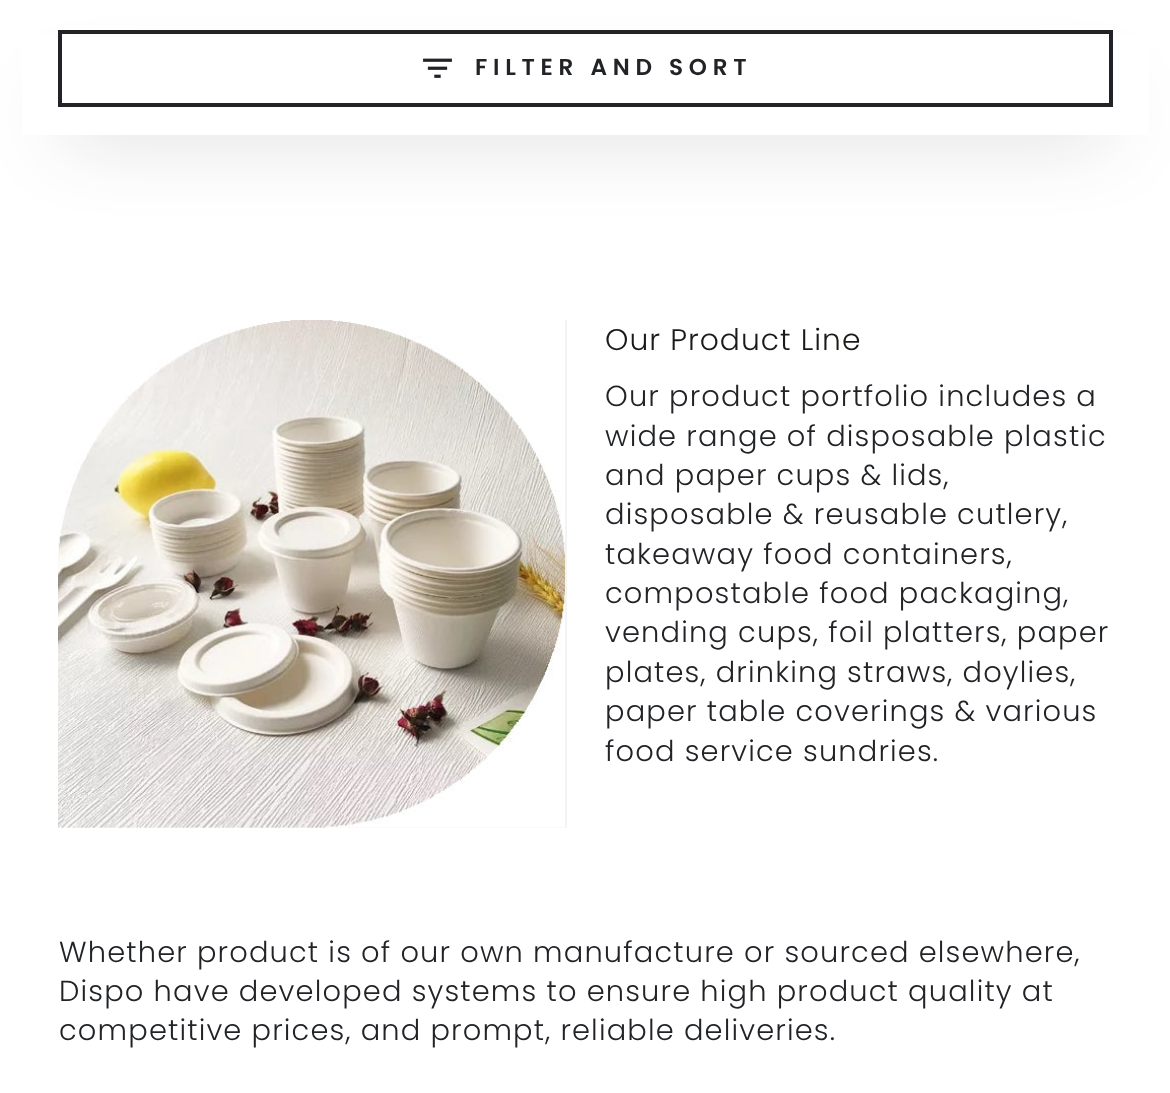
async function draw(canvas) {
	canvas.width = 1170;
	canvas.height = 1093;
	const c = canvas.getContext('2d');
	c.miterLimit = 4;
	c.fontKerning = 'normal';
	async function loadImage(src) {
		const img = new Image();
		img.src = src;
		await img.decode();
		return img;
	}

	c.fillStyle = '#fff';
	c.fillRect(0, 0, 1170, 1093);
	c.fillStyle = '#21232633';
	c.filter = 'blur(38.5px)';
	c.beginPath();
	c.roundRect(58, 96, 1055, 39, 19.5);
	c.fill();
	c.filter = 'none';
	c.fillStyle = '#fff';
	c.fillRect(22, 37, 1127, 98);
	c.strokeStyle = '#212326';
	c.lineWidth = 4;
	c.strokeRect(60, 32, 1051, 73);
	c.drawImage(await loadImage('img1.png'), 423, 58, 29, 20);
	c.letterSpacing = '5.75px';
	c.font = '600 23.1px Poppins';
	c.fillStyle = '#212326';
	c.fillText('FILTER AND SORT', 475, 75);
	c.fillStyle = '#f3f3f3';
	c.fillRect(58, 320, 509, 508);
	c.drawImage(await loadImage('img2.png'), 58, 320, 507, 508);
	c.letterSpacing = '1px';
	c.font = '300 29.75px Poppins';
	c.fillStyle = '#1a1b18';
	c.fillText('Our Product Line', 605, 350);
	c.letterSpacing = '1.15px';
	c.font = '300 28.9px Poppins';
	c.fillStyle = '#212326';
	for (const [text, x, y] of [
		['Our product portfolio includes a', 605, 406],
		['wide range of disposable plastic', 605, 446],
		['and paper cups & lids,', 605, 485],
		['disposable & reusable cutlery,', 605, 524],
		['takeaway food containers,', 605, 564],
		['compostable food packaging,', 605, 603],
		['vending cups, foil platters, paper', 605, 642],
		['plates, drinking straws, doylies,', 605, 682],
		['paper table coverings & various', 605, 721],
		['food service sundries.', 605, 761],
		['Whether product is of our own manufacture or sourced elsewhere,', 59, 962],
		['Dispo have developed systems to ensure high product quality at', 59, 1001],
		['competitive prices, and prompt, reliable deliveries.', 59, 1040],
	]) {
		c.fillText(text, x, y);
	}
}

draw(document.querySelector('canvas'));
